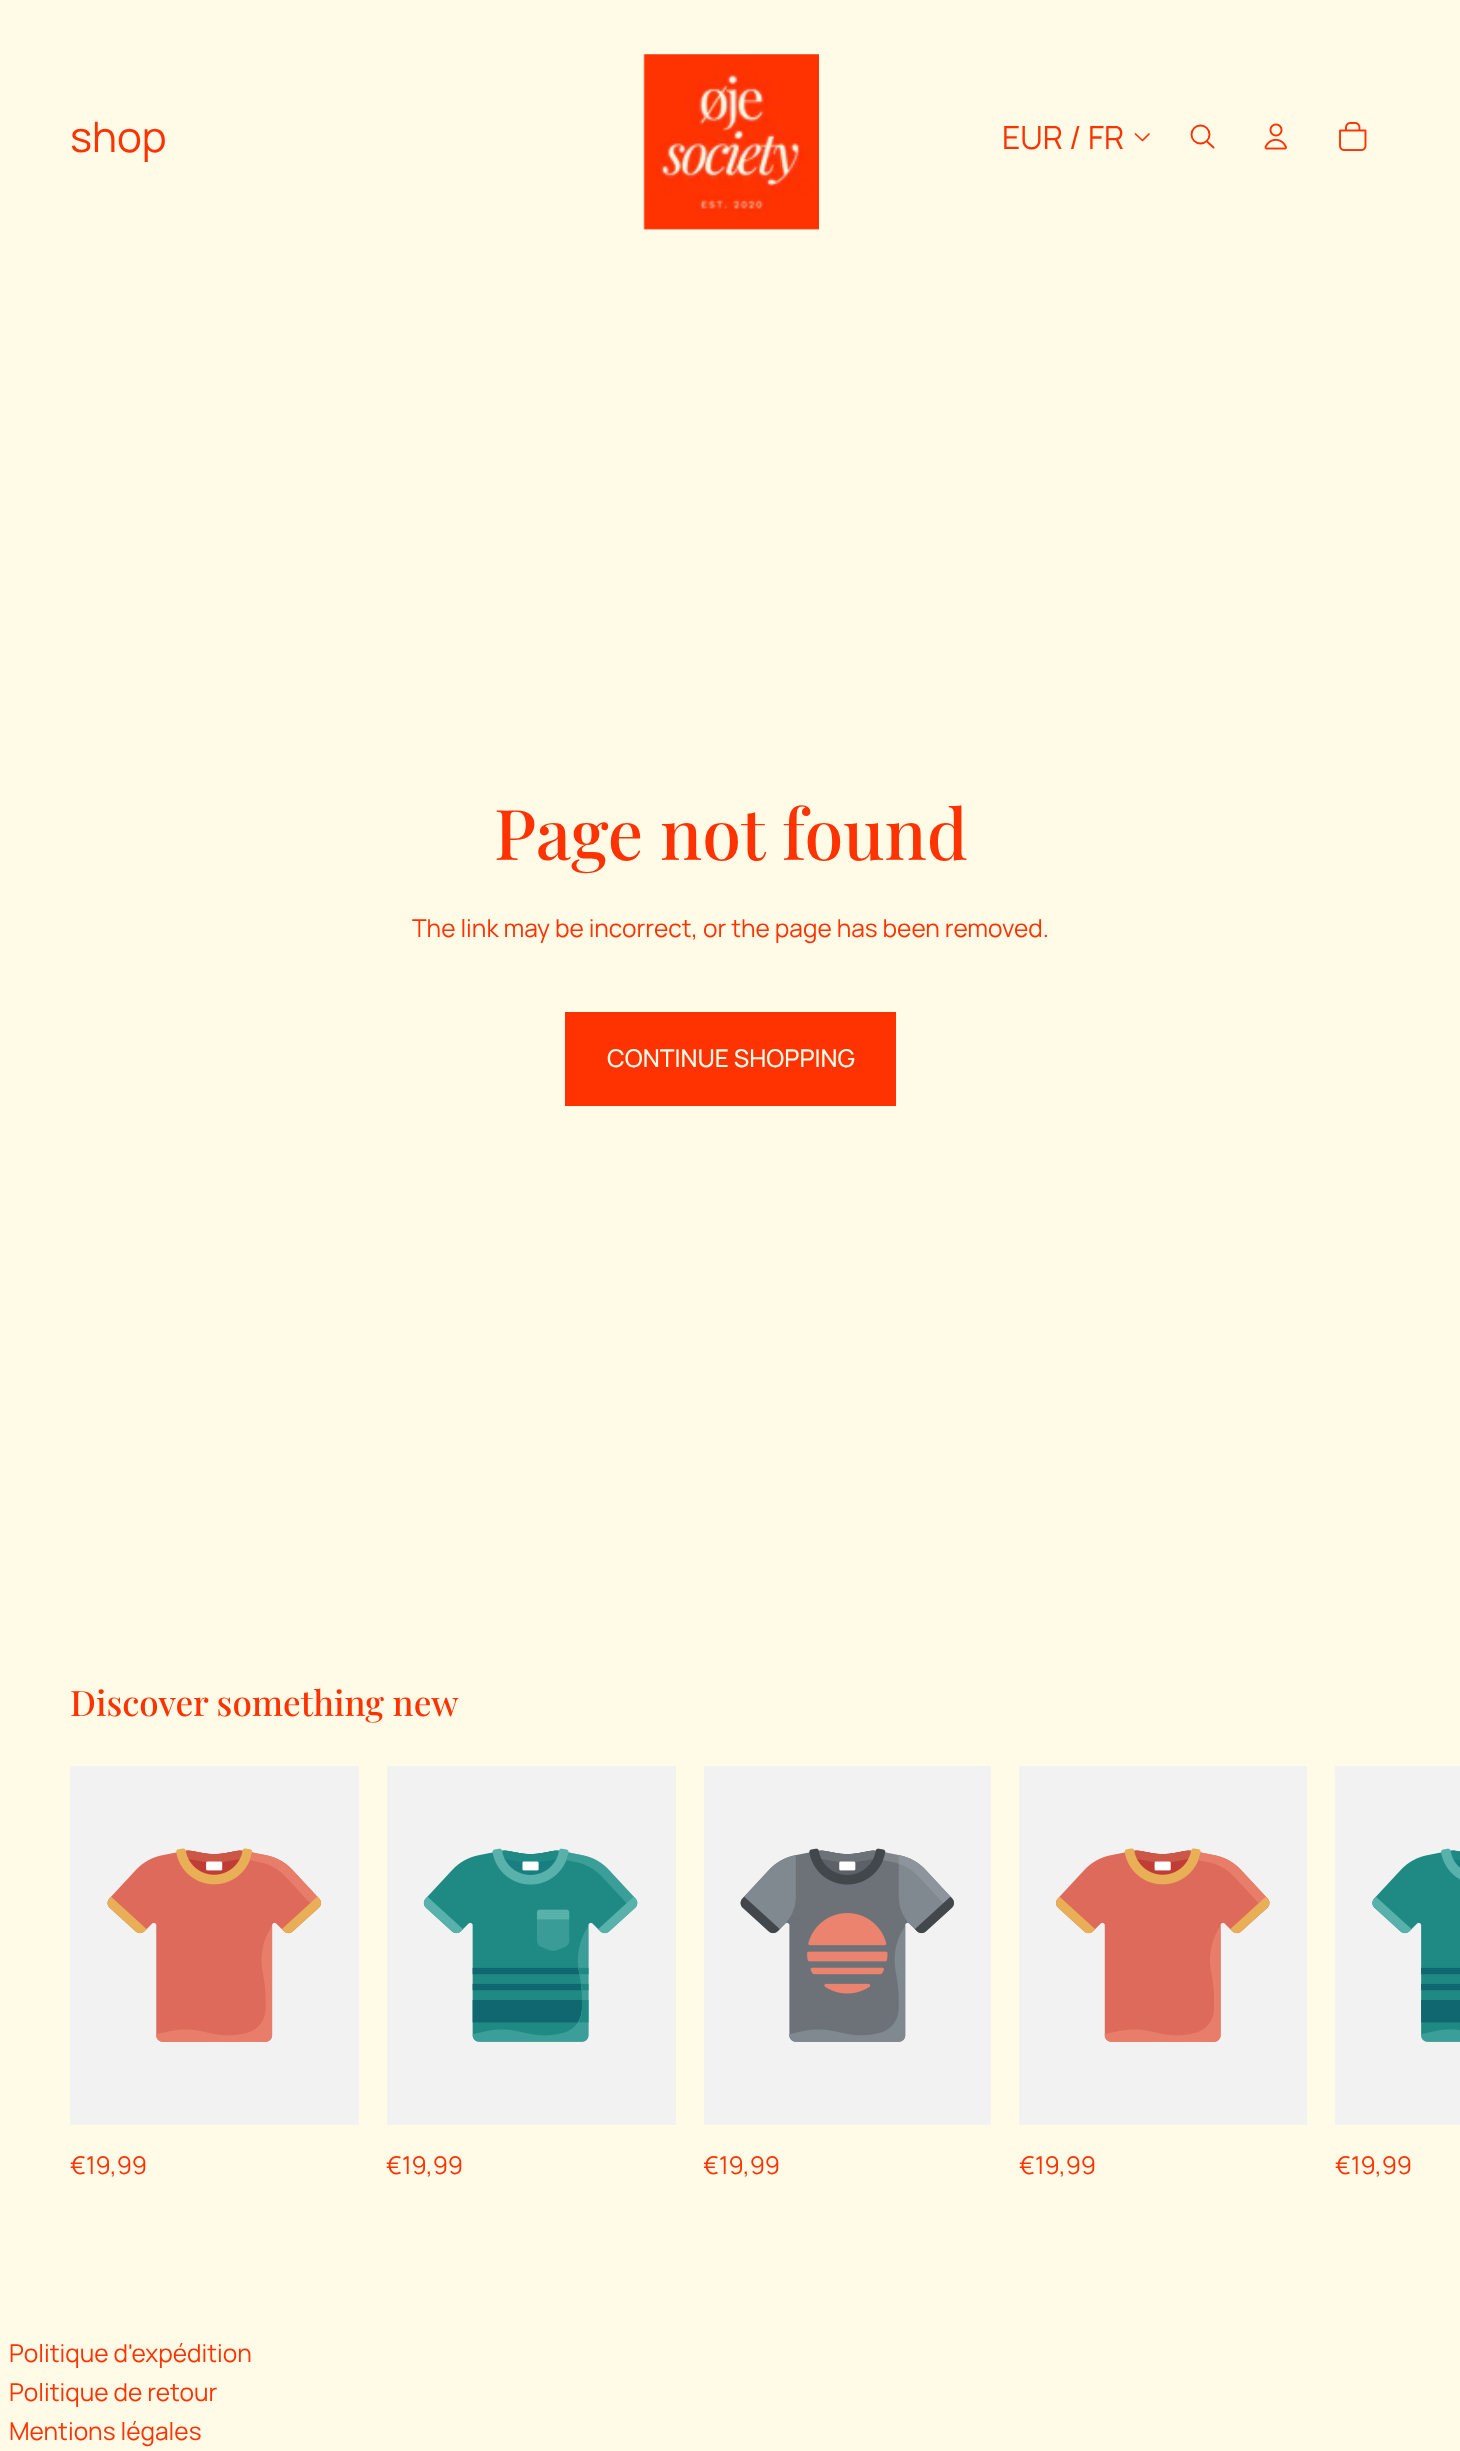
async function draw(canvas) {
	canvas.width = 1460;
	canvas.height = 2451;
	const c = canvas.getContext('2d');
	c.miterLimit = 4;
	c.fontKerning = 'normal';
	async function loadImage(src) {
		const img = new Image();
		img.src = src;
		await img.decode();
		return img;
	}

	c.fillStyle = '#fffbe7';
	c.fillRect(0, 0, 1460, 2451);
	c.font = '42px Manrope';
	c.fillStyle = '#ff3301';
	c.fillText('shop', 70, 152);
	c.drawImage(await loadImage('img1.png'), 643, 54, 176, 176);
	c.font = '32px Manrope';
	for (const [text, x, y] of [
		['EUR', 1002, 149],
		['/', 1069, 149],
		['FR', 1088, 149],
	]) {
		c.fillText(text, x, y);
	}
	c.beginPath();
	c.moveTo(1149, 134);
	c.lineTo(1142.5, 140.5);
	c.lineTo(1135.5, 134);
	c.strokeStyle = '#ff3301';
	c.lineWidth = 1.7;
	c.lineCap = 'round';
	c.lineJoin = 'round';
	c.stroke();
	c.beginPath();
	c.arc(1200.5, 134.5, 9, 0, 2 * Math.PI);
	c.lineWidth = 1.9;
	c.stroke();
	c.beginPath();
	c.moveTo(1207, 141.5);
	c.lineTo(1213.5, 147.5);
	c.stroke();
	c.drawImage(await loadImage('img2.png'), 1264, 123, 23, 27);
	c.drawImage(await loadImage('img3.png'), 1339, 122, 28, 29);
	c.font = '500 70px Playfair Display';
	c.fillText('Page not found', 494, 860);
	c.font = '24.5px Manrope';
	c.fillText('The link may be incorrect, or the page has been removed.', 412, 937);
	c.fillRect(565, 1012, 331, 94);
	c.font = '500 24.5px Manrope';
	c.fillStyle = '#fffbe7';
	c.fillText('CONTINUE SHOPPING', 607, 1067);
	c.font = '500 35px Playfair Display';
	c.fillStyle = '#ff3301';
	c.fillText('Discover something new', 70, 1716);
	c.drawImage(await loadImage('img4.png'), 70, 1766, 289, 359);
	c.font = '24.5px Manrope';
	c.fillText('€19,99', 70, 2174);
	c.drawImage(await loadImage('img5.png'), 387, 1766, 289, 359);
	c.fillText('€19,99', 386, 2174);
	c.drawImage(await loadImage('img6.png'), 704, 1766, 287, 359);
	c.save();
	c.beginPath();
	c.rect(704, 1766, 287, 420);
	c.clip();
	c.fillText('€19,99', 703, 2174);
	c.restore();
	c.drawImage(await loadImage('img7.png'), 1019, 1766, 288, 359);
	c.fillText('€19,99', 1019, 2174);
	c.drawImage(await loadImage('img8.png'), 1335, 1766, 125, 359);
	for (const [text, x, y] of [
		['€19,99', 1335, 2174],
		['Politique d\'expédition', 9, 2362],
		['Politique de retour', 9, 2401],
		['Mentions légales', 9, 2440],
	]) {
		c.fillText(text, x, y);
	}
}

draw(document.querySelector('canvas'));
